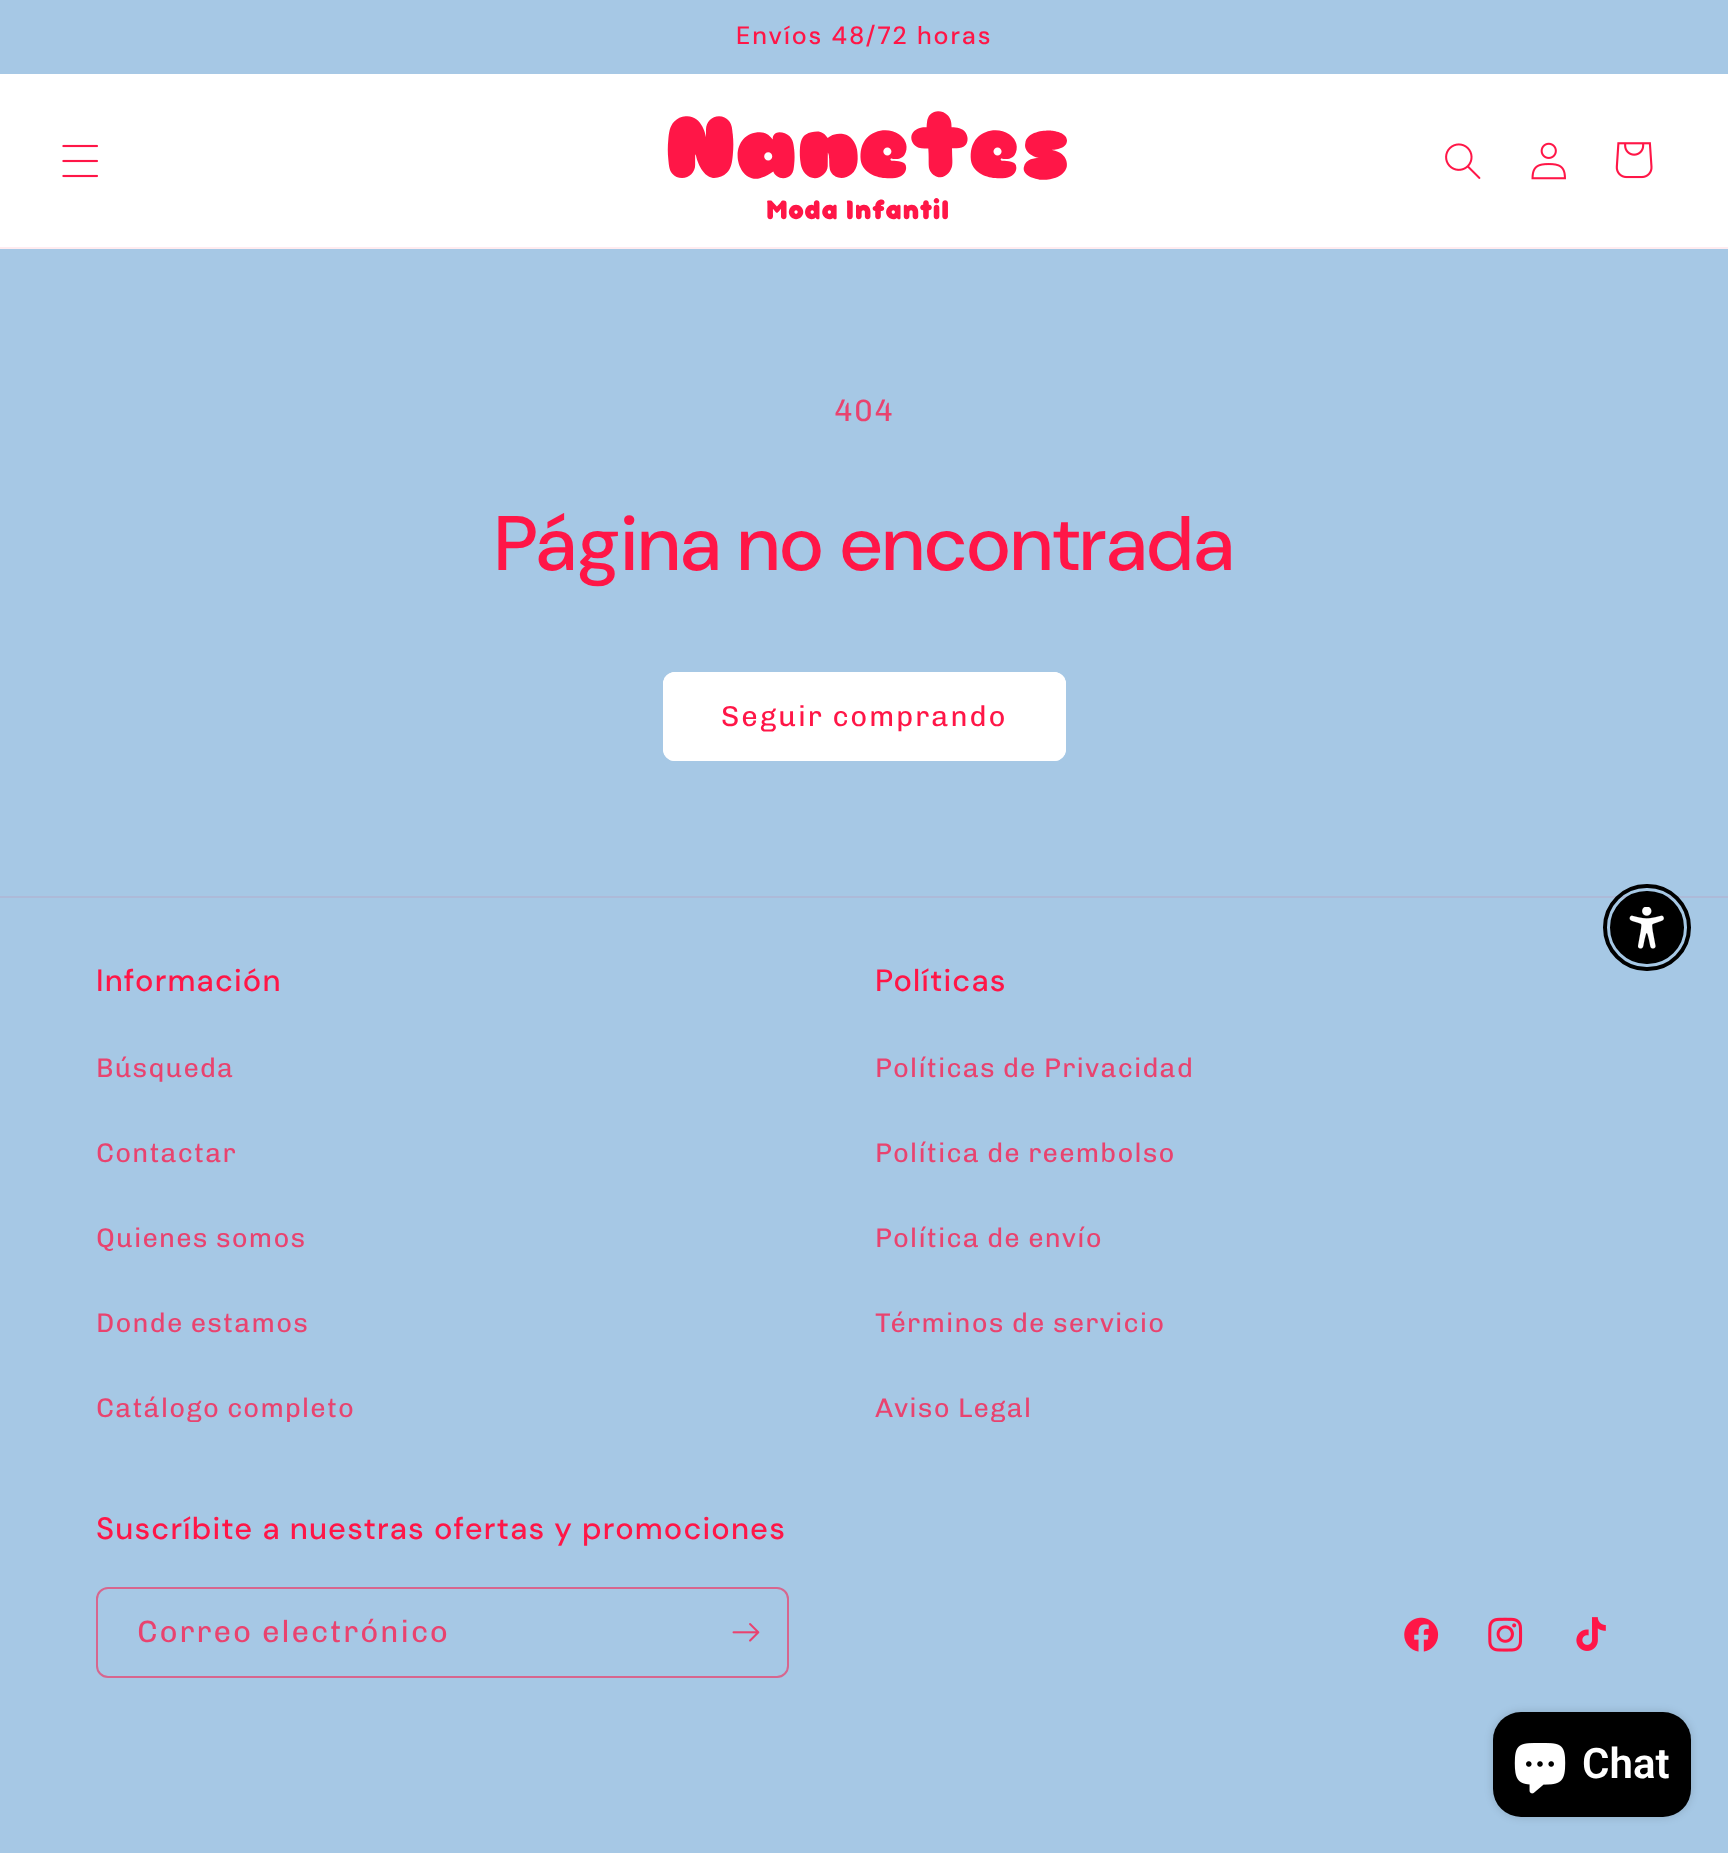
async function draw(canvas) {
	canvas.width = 1728;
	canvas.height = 1853;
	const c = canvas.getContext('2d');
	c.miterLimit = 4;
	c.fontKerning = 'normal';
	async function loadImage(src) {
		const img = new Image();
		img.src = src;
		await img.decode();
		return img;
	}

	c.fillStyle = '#a6c8e5';
	c.fillRect(0, 0, 1728, 1853);
	c.letterSpacing = '1.9px';
	c.font = '500 25px "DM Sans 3"';
	c.fillStyle = '#ff1647';
	c.fillText('Envíos 48/72 horas', 736, 44);
	c.fillStyle = '#fff';
	c.fillRect(0, 74, 1728, 173);
	c.fillStyle = '#ffecf0';
	c.fillRect(0, 247, 1728, 2);
	c.drawImage(await loadImage('img1.png'), 62, 144, 36, 34);
	c.drawImage(await loadImage('img2.png'), 667, 111, 400, 109);
	c.drawImage(await loadImage('img3.png'), 1445, 143, 36, 36);
	c.drawImage(await loadImage('img4.png'), 1531, 142, 35, 38);
	c.drawImage(await loadImage('img5.png'), 1615, 142, 38, 37);
	c.letterSpacing = '1.15px';
	c.font = '30.8px Chivo';
	c.fillStyle = '#e9436f';
	c.fillText('404', 834, 421);
	c.font = '500 77px DM Sans';
	c.fillStyle = '#ff1647';
	c.fillText('Página no encontrada', 495, 570);
	c.fillStyle = '#fff';
	c.beginPath();
	c.roundRect(663, 672, 403, 89, 12);
	c.fill();
	c.beginPath();
	c.roundRect(664, 673, 401, 87, 11);
	c.strokeStyle = '#fff';
	c.lineWidth = 2;
	c.stroke();
	c.letterSpacing = '1.9px';
	c.font = '28.9px Chivo';
	c.fillStyle = '#ff1647';
	c.fillText('Seguir comprando', 721, 726);
	c.fillStyle = '#adbad8';
	c.fillRect(0, 896, 1728, 2);
	c.beginPath();
	c.roundRect(1605, 886, 84, 83, 41.5);
	c.strokeStyle = '#000';
	c.lineWidth = 4;
	c.stroke();
	c.fillStyle = '#000';
	c.beginPath();
	c.roundRect(1611, 892, 72, 71, 35.5);
	c.fill();
	c.lineWidth = 2;
	c.stroke();
	c.drawImage(await loadImage('img6.png'), 1629, 907, 35, 42);
	c.letterSpacing = '1.15px';
	c.font = '500 30.8px "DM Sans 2"';
	c.fillStyle = '#ff1647';
	c.fillText('Información', 96, 991);
	c.font = '27px Chivo';
	c.fillStyle = '#e9436f';
	for (const [text, x, y] of [
		['Búsqueda', 96, 1077],
		['Contactar', 96, 1162],
		['Quienes somos', 96, 1247],
		['Donde estamos', 96, 1332],
		['Catálogo completo', 96, 1417],
	]) {
		c.fillText(text, x, y);
	}
	c.font = '500 30.8px "DM Sans 2"';
	c.fillStyle = '#ff1647';
	c.fillText('Políticas', 875, 991);
	c.font = '27px Chivo';
	c.fillStyle = '#e9436f';
	for (const [text, x, y] of [
		['Políticas de Privacidad', 875, 1077],
		['Política de reembolso', 875, 1162],
		['Política de envío', 875, 1247],
		['Términos de servicio', 875, 1332],
		['Aviso Legal', 875, 1417],
	]) {
		c.fillText(text, x, y);
	}
	c.font = '500 30.8px "DM Sans 2"';
	c.fillStyle = '#ff1647';
	c.fillText('Suscríbite a nuestras ofertas y promociones', 96, 1539);
	c.beginPath();
	c.roundRect(97, 1588, 691, 89, 11);
	c.strokeStyle = '#d7668e';
	c.stroke();
	c.letterSpacing = '1.9px';
	c.font = '30.8px Chivo';
	c.fillStyle = '#e9436f';
	c.fillText('Correo electrónico', 137, 1642);
	c.drawImage(await loadImage('img7.png'), 732, 1623, 28, 19);
	c.drawImage(await loadImage('img8.png'), 1404, 1617, 35, 35);
	c.drawImage(await loadImage('img9.png'), 1488, 1617, 35, 35);
	c.drawImage(await loadImage('img10.png'), 1576, 1617, 30, 34);
	c.fillStyle = '#00000026';
	c.filter = 'blur(4.5px)';
	c.beginPath();
	c.roundRect(1493, 1712, 198, 105, 28);
	c.fill();
	c.filter = 'none';
	c.fillStyle = '#000';
	c.beginPath();
	c.roundRect(1493, 1712, 198, 105, 28);
	c.fill();
	c.drawImage(await loadImage('img11.png'), 1514, 1743, 52, 51);
	c.letterSpacing = '0px';
	c.font = '600 42px Roboto';
	c.fillStyle = '#fff';
	c.fillText('Chat', 1582, 1778);
}

draw(document.querySelector('canvas'));
